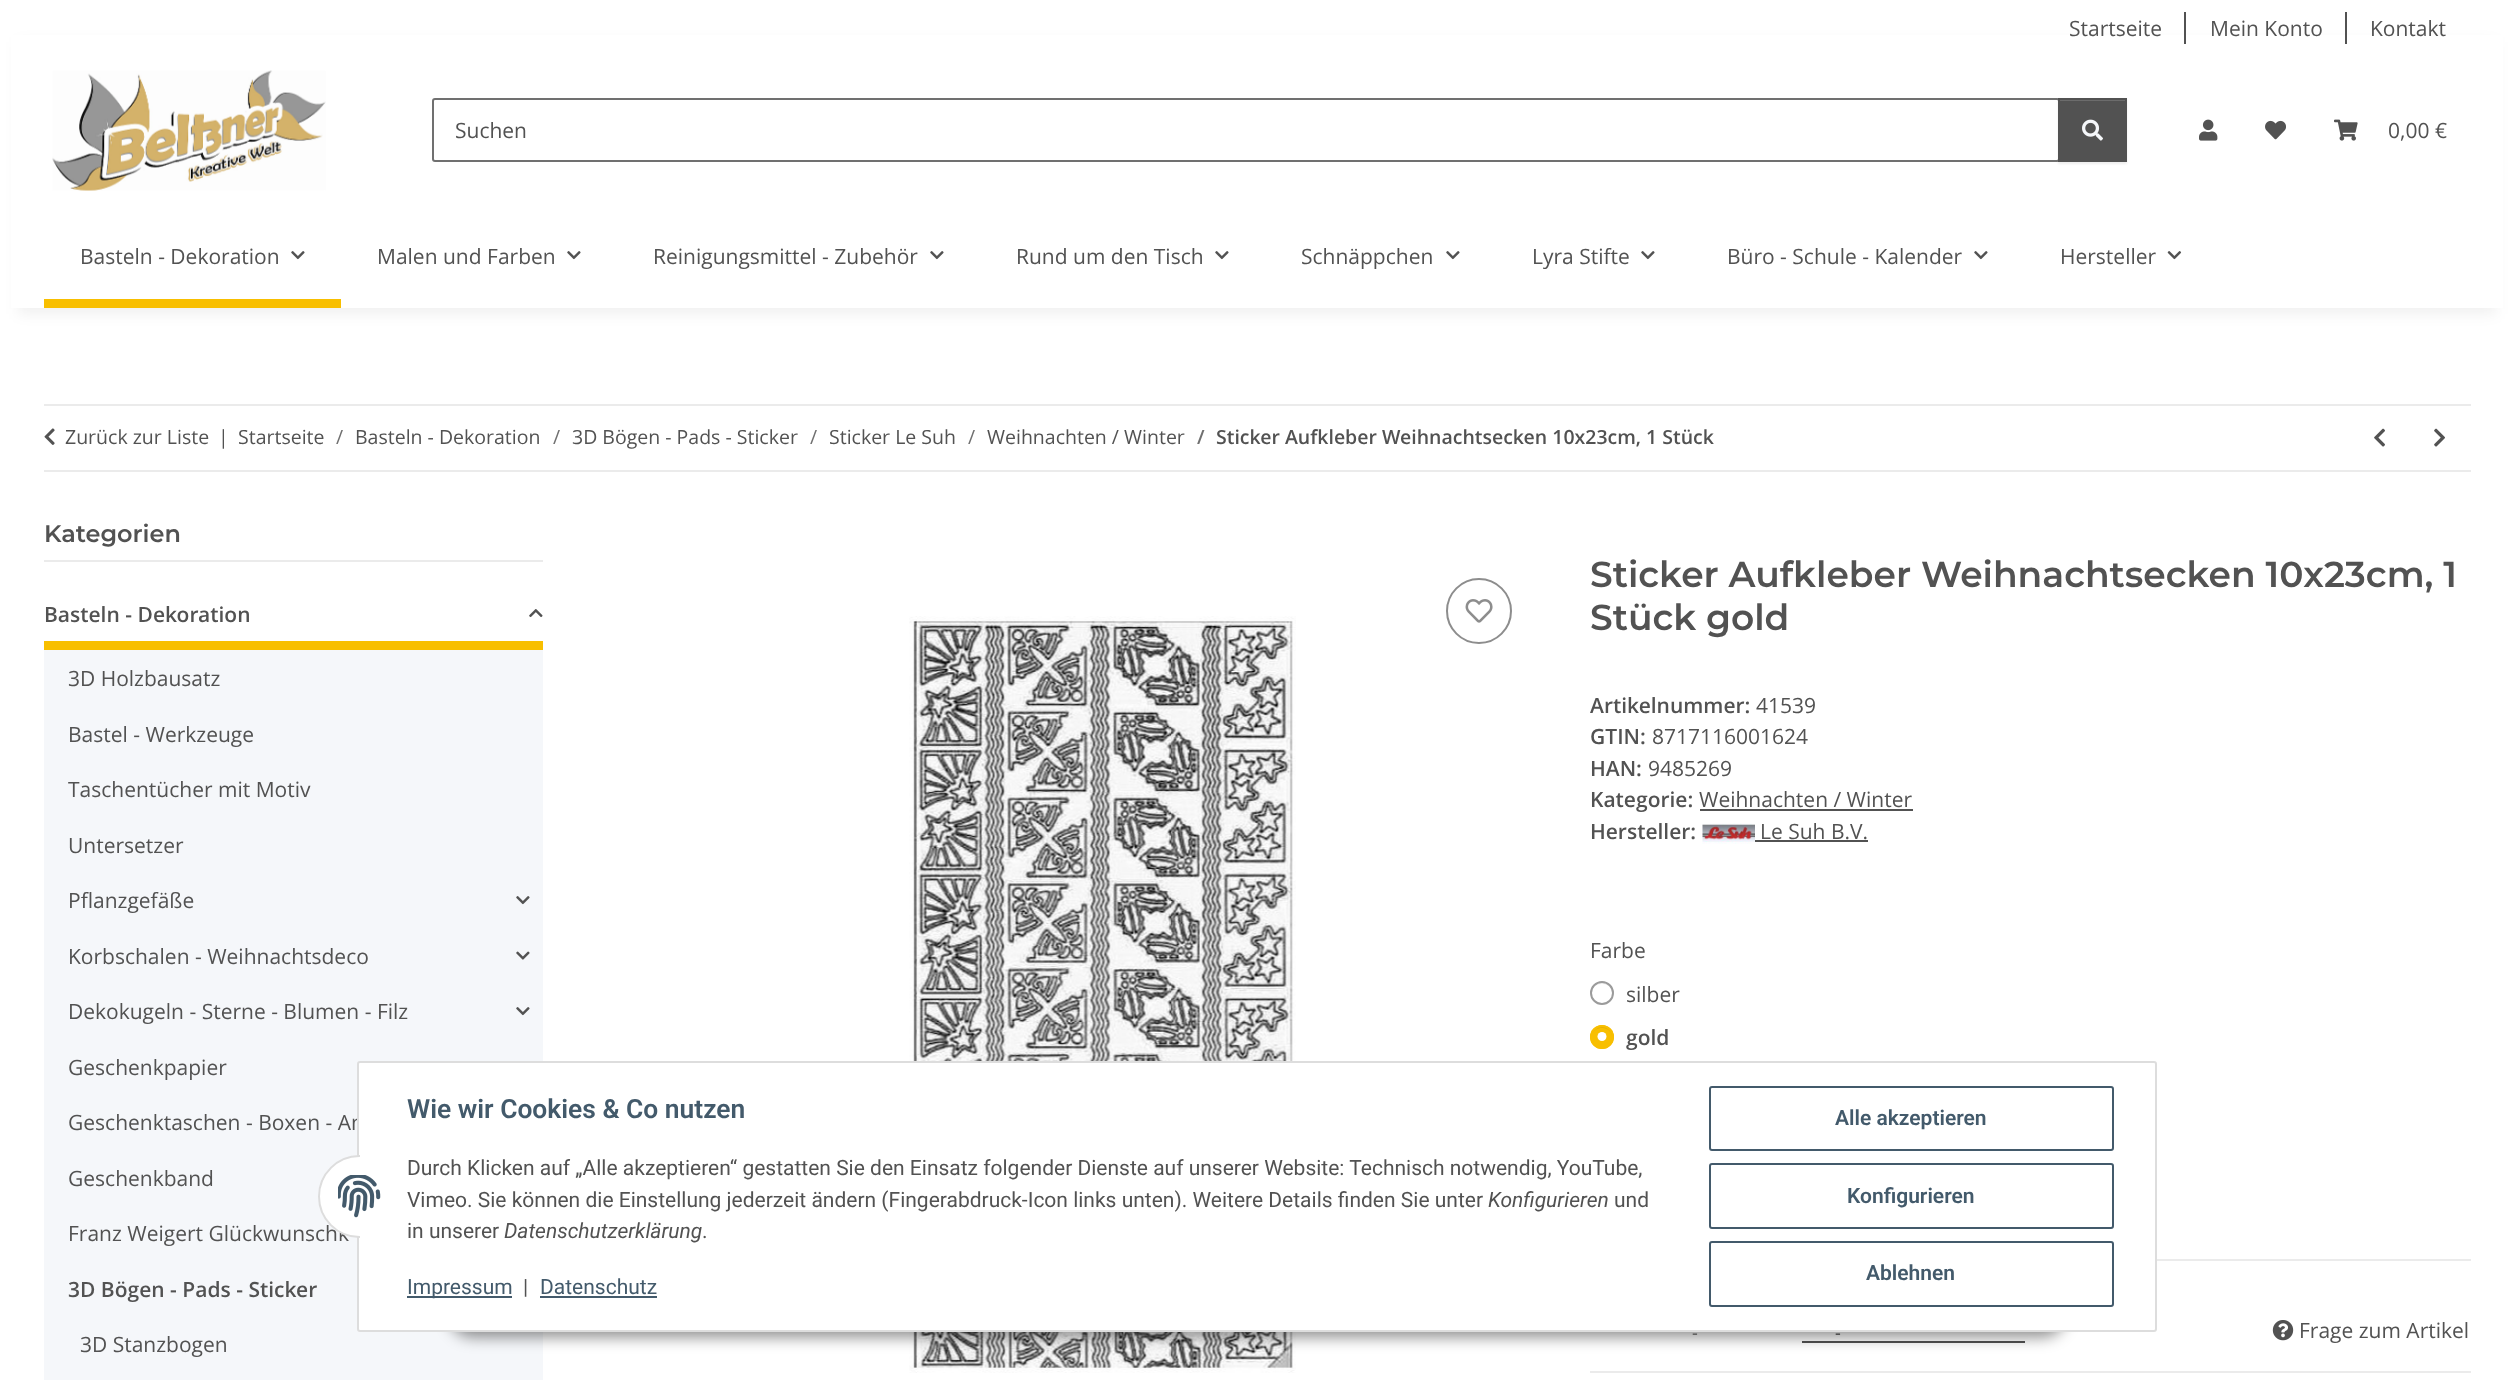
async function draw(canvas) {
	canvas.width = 2514;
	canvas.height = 1380;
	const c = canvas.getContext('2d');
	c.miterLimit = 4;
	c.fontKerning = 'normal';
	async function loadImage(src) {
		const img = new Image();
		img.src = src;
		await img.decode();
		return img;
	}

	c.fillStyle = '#fff';
	c.fillRect(0, 0, 2514, 1380);
	c.fillStyle = '#0000000f';
	c.filter = 'blur(7px)';
	c.beginPath();
	c.rect(18, 42, 2478, 272);
	c.fill();
	c.filter = 'none';
	c.fillStyle = '#fff';
	c.fillRect(11, 35, 2492, 273);
	c.font = '21px Open Sans';
	c.fillStyle = '#525252';
	c.fillText('Startseite', 2069, 36);
	c.fillRect(2184, 12, 2, 32);
	c.fillText('Mein Konto', 2210, 36);
	c.fillRect(2345, 12, 2, 32);
	c.fillText('Kontakt', 2370, 36);
	c.drawImage(await loadImage('img1.png'), 52, 70, 274, 121);
	c.beginPath();
	c.roundRect(433, 99, 1626, 62, 2);
	c.strokeStyle = '#707070';
	c.lineWidth = 2;
	c.stroke();
	c.fillText('Suchen', 455, 138);
	c.fillStyle = '#00000012';
	c.filter = 'blur(1px)';
	c.beginPath();
	c.rect(2058, 99, 69, 65);
	c.fill();
	c.filter = 'none';
	c.fillStyle = '#525252';
	c.fillRect(2060, 101, 65, 59);
	c.fillStyle = '#6c6c6c';
	c.fillRect(2060, 100, 66, 1);
	c.strokeStyle = '#525252';
	c.strokeRect(2059, 99, 67, 62);
	c.drawImage(await loadImage('img2.png'), 2082, 119, 21, 22);
	c.drawImage(await loadImage('img3.png'), 2199, 119, 19, 22);
	c.drawImage(await loadImage('img4.png'), 2265, 120, 21, 20);
	c.drawImage(await loadImage('img5.png'), 2334, 119, 24, 22);
	c.fillStyle = '#525252';
	c.fillText('0,00 €', 2388, 138);
	c.fillText('Basteln - Dekoration', 80, 264);
	c.drawImage(await loadImage('img6.png'), 291, 251, 14, 9);
	c.fillStyle = '#f8bf00';
	c.fillRect(44, 299, 297, 9);
	c.fillStyle = '#525252';
	c.fillText('Malen und Farben', 377, 264);
	c.drawImage(await loadImage('img6.png'), 567, 251, 14, 9);
	c.fillText('Reinigungsmittel - Zubehör', 653, 264);
	c.drawImage(await loadImage('img6.png'), 930, 251, 14, 9);
	c.fillText('Rund um den Tisch', 1016, 264);
	c.drawImage(await loadImage('img6.png'), 1215, 251, 14, 9);
	c.fillText('Schnäppchen', 1301, 264);
	c.drawImage(await loadImage('img6.png'), 1446, 251, 14, 9);
	c.fillText('Lyra Stifte', 1532, 264);
	c.drawImage(await loadImage('img6.png'), 1641, 251, 14, 9);
	c.fillText('Büro - Schule - Kalender', 1727, 264);
	c.drawImage(await loadImage('img6.png'), 1974, 251, 14, 9);
	c.fillText('Hersteller', 2060, 264);
	c.drawImage(await loadImage('img7.png'), 2167, 251, 15, 9);
	c.fillStyle = '#ebebeb';
	c.fillRect(44, 404, 2427, 2);
	c.fillRect(44, 470, 2427, 2);
	c.drawImage(await loadImage('img8.png'), 44, 428, 11, 17);
	c.font = '19.5px Open Sans';
	c.fillStyle = '#525252';
	for (const [text, x, y] of [
		['Zurück zur Liste', 65, 444],
		['|', 218, 444],
		['Startseite', 238, 444],
	]) {
		c.fillText(text, x, y);
	}
	c.fillStyle = '#707070';
	c.fillText('/', 336, 444);
	c.fillStyle = '#525252';
	c.fillText('Basteln - Dekoration', 355, 444);
	c.fillStyle = '#707070';
	c.fillText('/', 553, 444);
	c.fillStyle = '#525252';
	c.fillText('3D Bögen - Pads - Sticker', 572, 444);
	c.fillStyle = '#707070';
	c.fillText('/', 810, 444);
	c.fillStyle = '#525252';
	c.fillText('Sticker Le Suh', 829, 444);
	c.fillStyle = '#707070';
	c.fillText('/', 968, 444);
	c.fillStyle = '#525252';
	c.fillText('Weihnachten / Winter', 987, 444);
	c.font = '600 19.5px Open Sans';
	c.fillStyle = '#707070';
	c.fillText('/', 1197, 444);
	c.fillStyle = '#525252';
	c.fillText('Sticker Aufkleber Weihnachtsecken 10x23cm, 1 Stück', 1216, 444);
	c.drawImage(await loadImage('img9.png'), 2374, 428, 11, 19);
	c.drawImage(await loadImage('img10.png'), 2434, 428, 11, 19);
	c.fillStyle = '#ebebeb';
	c.fillRect(44, 560, 499, 2);
	c.font = '600 24px Montserrat';
	c.fillStyle = '#525252';
	c.fillText('Kategorien', 44, 542);
	c.fillStyle = '#f8bf00';
	c.fillRect(44, 641, 499, 9);
	c.font = '600 21px Open Sans';
	c.fillStyle = '#525252';
	c.fillText('Basteln - Dekoration', 44, 622);
	c.drawImage(await loadImage('img11.png'), 529, 609, 14, 9);
	c.fillStyle = '#f5f7fa';
	c.fillRect(44, 650, 499, 730);
	c.font = '21px Open Sans';
	c.fillStyle = '#525252';
	for (const [text, x, y] of [
		['3D Holzbausatz', 68, 686],
		['Bastel - Werkzeuge', 68, 742],
		['Taschentücher mit Motiv', 68, 797],
		['Untersetzer', 68, 853],
		['Pflanzgefäße', 68, 908],
	]) {
		c.fillText(text, x, y);
	}
	c.drawImage(await loadImage('img12.png'), 516, 896, 14, 9);
	c.fillText('Korbschalen - Weihnachtsdeco', 68, 964);
	c.drawImage(await loadImage('img13.png'), 516, 951, 14, 9);
	c.fillText('Dekokugeln - Sterne - Blumen - Filz', 68, 1019);
	c.drawImage(await loadImage('img12.png'), 516, 1007, 14, 9);
	for (const [text, x, y] of [
		['Geschenkpapier', 68, 1075],
		['Geschenktaschen - Boxen - An', 68, 1130],
		['Geschenkband', 68, 1186],
		['Franz Weigert Glückwunschk', 68, 1241],
	]) {
		c.fillText(text, x, y);
	}
	c.font = '600 21px Open Sans';
	c.fillText('3D Bögen - Pads - Sticker', 68, 1297);
	c.font = '21px Open Sans';
	c.fillText('3D Stanzbogen', 80, 1352);
	c.drawImage(await loadImage('img14.png'), 909, 616, 387, 757);
	c.beginPath();
	c.arc(1479, 611, 32, 0, 2 * Math.PI);
	c.strokeStyle = '#8d8d8d';
	c.stroke();
	c.drawImage(await loadImage('img15.png'), 1465, 599, 28, 24);
	c.font = '600 36px Montserrat';
	c.fillText('Sticker Aufkleber Weihnachtsecken 10x23cm, 1', 1590, 587);
	c.fillText('Stück gold', 1590, 630);
	c.font = '600 21px Open Sans';
	c.fillText('Artikelnummer:', 1590, 713);
	c.font = '21px Open Sans';
	c.fillText('41539', 1756, 713);
	c.font = '600 21px Open Sans';
	c.fillText('GTIN:', 1590, 744);
	c.font = '21px Open Sans';
	c.fillText('8717116001624', 1652, 744);
	c.font = '600 21px Open Sans';
	c.fillText('HAN:', 1590, 776);
	c.font = '21px Open Sans';
	c.fillText('9485269', 1648, 776);
	c.font = '600 21px Open Sans';
	c.fillText('Kategorie:', 1590, 807);
	c.font = '21px Open Sans';
	c.fillText('Weihnachten / Winter', 1699, 807);
	c.fillRect(1700, 809, 213, 2);
	c.font = '600 21px Open Sans';
	c.fillText('Hersteller:', 1590, 839);
	c.drawImage(await loadImage('img16.png'), 1702, 823, 53, 21);
	c.font = '21px Open Sans';
	c.fillText('Le Suh B.V.', 1760, 839);
	c.fillRect(1755, 840, 113, 2);
	c.fillText('Farbe', 1590, 958);
	c.fillStyle = '#ececec';
	c.beginPath();
	c.moveTo(1602, 984);
	c.bezierCurveTo(1610.5, 984, 1614, 992, 1612, 998);
	c.bezierCurveTo(1617.5, 986.5, 1600.5, 977, 1593.5, 988);
	c.bezierCurveTo(1595.5, 985.5, 1598, 984, 1602, 984);
	c.closePath();
	c.fill();
	c.beginPath();
	c.arc(1602, 993, 11, 0, 2 * Math.PI);
	c.strokeStyle = '#9b9b9b';
	c.stroke();
	c.fillStyle = '#525252';
	c.fillText('silber', 1626, 1002);
	c.fillStyle = '#f8bf00';
	c.beginPath();
	c.arc(1602, 1037, 12, 0, 2 * Math.PI);
	c.fill();
	c.fillStyle = '#e5b100';
	c.beginPath();
	c.moveTo(1602, 1028);
	c.bezierCurveTo(1610, 1028, 1613.5, 1035, 1612, 1040.5);
	c.bezierCurveTo(1618, 1027, 1596, 1019.5, 1592.5, 1034);
	c.bezierCurveTo(1593.5, 1030.5, 1597, 1028, 1602, 1028);
	c.closePath();
	c.fill();
	c.beginPath();
	c.arc(1602, 1037, 11, 0, 2 * Math.PI);
	c.strokeStyle = '#f8bf00';
	c.stroke();
	c.font = '600 21px Open Sans';
	c.fillStyle = '#525252';
	c.fillText('gold', 1626, 1045);
	c.fillStyle = '#fff';
	c.beginPath();
	c.arc(1602, 1036.5, 4.5, 0, 2 * Math.PI);
	c.fill();
	c.fillStyle = '#ebebeb';
	c.fillRect(2157, 1259, 314, 2);
	c.fillRect(1590, 1371, 881, 2);
	c.font = '18px Open Sans';
	c.fillStyle = '#707070';
	c.fillText('-', 1692, 1339);
	c.fillStyle = '#525252';
	c.fillText('-', 1835, 1339);
	c.fillRect(1802, 1341, 223, 2);
	c.drawImage(await loadImage('img17.png'), 2272, 1320, 22, 21);
	c.font = '21px Open Sans';
	c.fillText('Frage zum Artikel', 2299, 1338);
	c.fillStyle = '#00000073';
	c.filter = 'blur(7.5px)';
	c.beginPath();
	c.roundRect(449, 1289, 1617, 48, 24);
	c.fill();
	c.filter = 'none';
	c.fillStyle = '#fff';
	c.beginPath();
	c.roundRect(358, 1062, 1798, 269, 2);
	c.fill();
	c.strokeStyle = '#ddd';
	c.stroke();
	c.beginPath();
	c.arc(359.5, 1196.5, 40.5, 0, 2 * Math.PI);
	c.fill();
	c.stroke();
	c.fillRect(360, 1155, 41, 83);
	c.drawImage(await loadImage('img18.png'), 338, 1175, 43, 43);
	c.font = '600 26.4px Roboto';
	c.fillStyle = '#435a6b';
	c.fillText('Wie wir Cookies & Co nutzen', 407, 1118);
	c.font = '21px Roboto';
	c.fillStyle = '#525252';
	c.fillText('Durch Klicken auf „Alle akzeptieren“ gestatten Sie den Einsatz folgender Dienste auf unserer Website: Technisch notwendig, YouTube,', 407, 1175);
	c.fillText('Vimeo. Sie können die Einstellung jederzeit ändern (Fingerabdruck-Icon links unten). Weitere Details finden Sie unter', 407, 1207);
	c.font = 'italic 21px Roboto';
	c.fillText('Konfigurieren', 1488, 1207);
	c.font = '21px Roboto';
	c.fillText('und', 1614, 1207);
	c.fillText('in unserer', 407, 1238);
	c.font = 'italic 21px Roboto';
	c.fillText('Datenschutzerklärung', 504, 1238);
	c.font = '21px Roboto';
	c.fillText('.', 702, 1238);
	c.fillStyle = '#435a6b';
	c.fillRect(407, 1296, 105, 2);
	c.fillText('Impressum', 407, 1294);
	c.fillStyle = '#525252';
	c.fillText('|', 523, 1294);
	c.fillStyle = '#435a6b';
	c.fillText('Datenschutz', 540, 1294);
	c.fillRect(540, 1296, 117, 2);
	c.beginPath();
	c.roundRect(1710, 1087, 403, 63, 2);
	c.strokeStyle = '#435a6b';
	c.stroke();
	c.font = '600 21px Roboto';
	c.fillText('Alle akzeptieren', 1835, 1125);
	c.beginPath();
	c.roundRect(1710, 1164, 403, 64, 2);
	c.stroke();
	c.fillText('Konfigurieren', 1847, 1203);
	c.beginPath();
	c.roundRect(1710, 1242, 403, 64, 2);
	c.stroke();
	c.fillText('Ablehnen', 1866, 1280);
}

draw(document.querySelector('canvas'));
